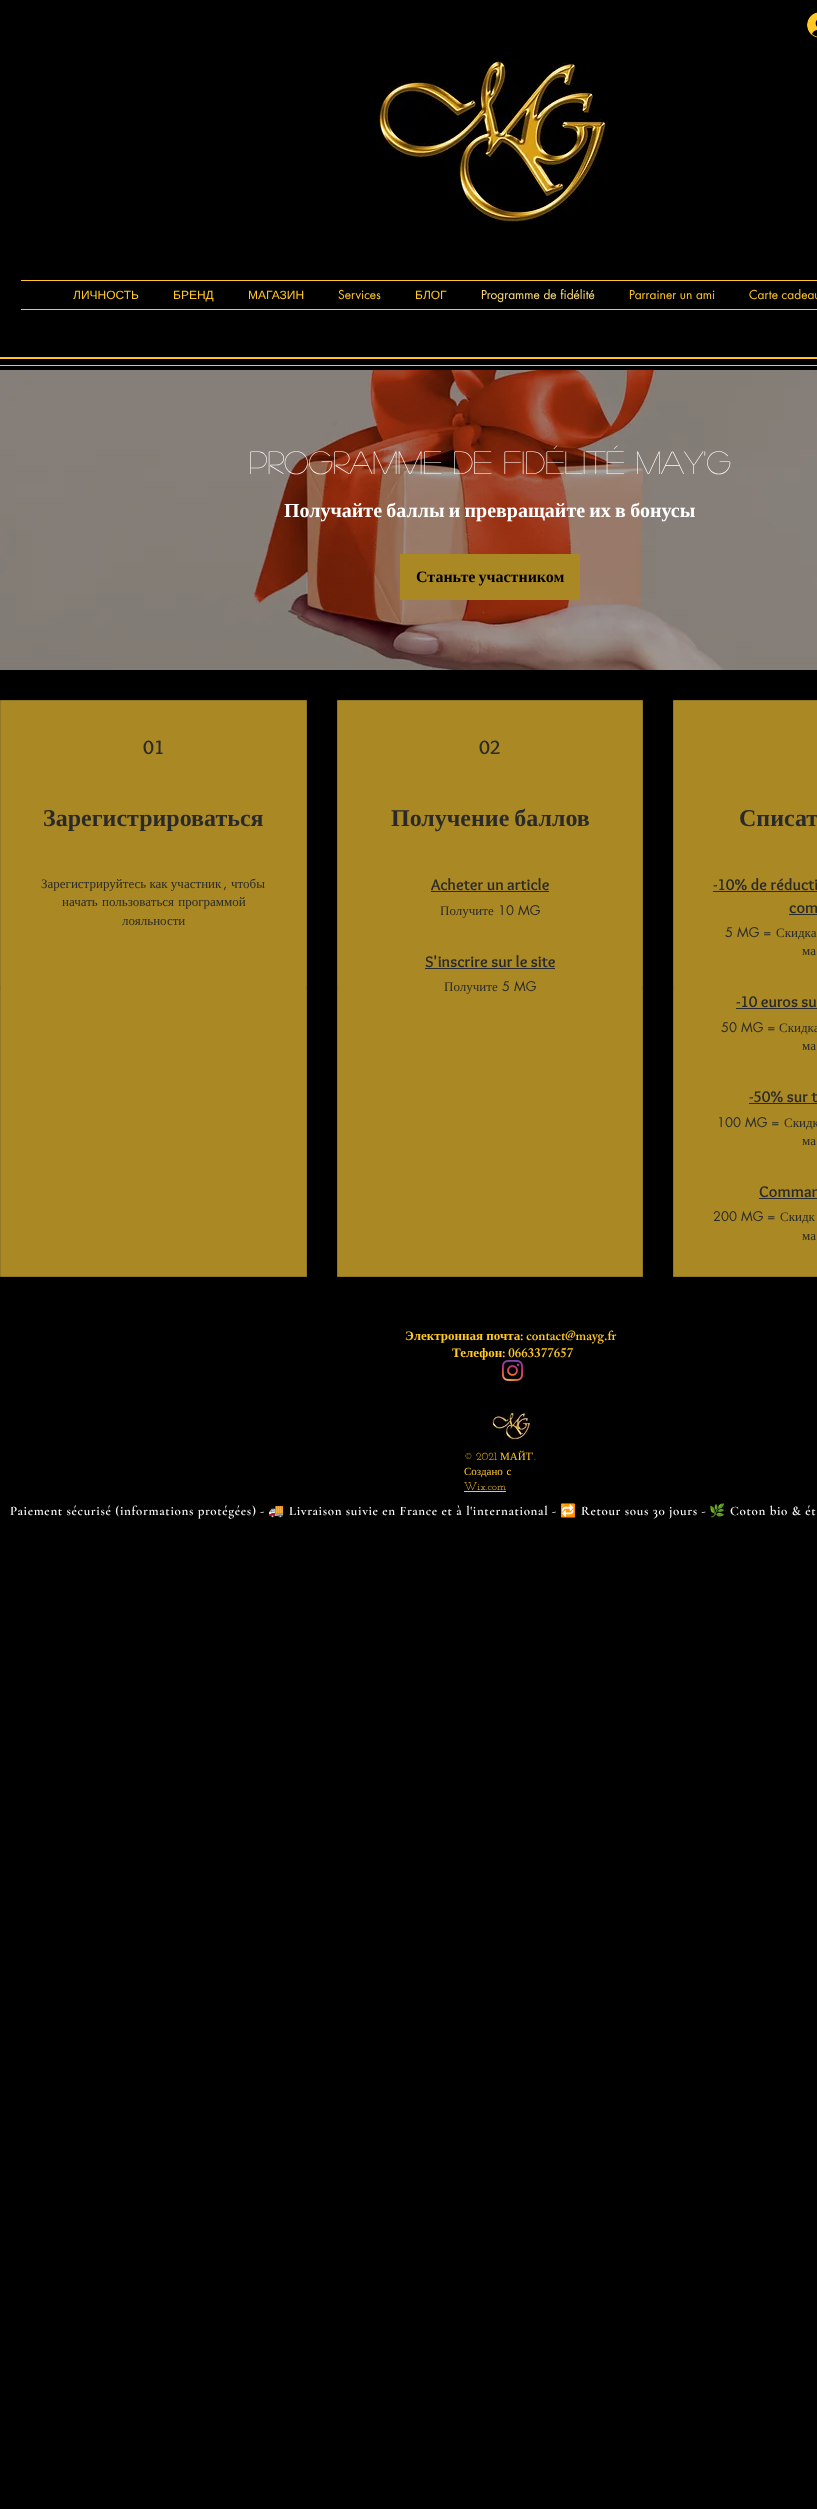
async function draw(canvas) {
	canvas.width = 817;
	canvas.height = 2509;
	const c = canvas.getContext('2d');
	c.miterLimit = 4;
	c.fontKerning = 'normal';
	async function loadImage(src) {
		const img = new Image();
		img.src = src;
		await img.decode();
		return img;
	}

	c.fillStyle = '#000';
	c.fillRect(0, 0, 817, 2509);
	c.drawImage(await loadImage('img1.png'), 807, 12, 10, 26);
	c.drawImage(await loadImage('img2.png'), 376, 59, 232, 164);
	c.fillStyle = '#ffc824';
	c.fillRect(21, 280, 796, 1);
	c.fillRect(21, 309, 796, 1);
	c.font = '12px Liberation Sans';
	for (const [text, x, y] of [
		['ЛИЧНОСТЬ', 73, 299],
		['БРЕНД', 173, 299],
		['МАГАЗИН', 248, 299],
	]) {
		c.fillText(text, x, y);
	}
	c.font = '12px futura';
	c.fillText('Services', 338, 299);
	c.font = '12px Liberation Sans';
	c.fillText('БЛОГ', 415, 299);
	c.font = '12px futura';
	c.fillStyle = '#ffde7a';
	c.fillText('Programme de fidélité', 481, 299);
	c.fillStyle = '#ffc824';
	c.fillText('Parrainer un ami', 629, 299);
	c.fillText('Carte cadeau', 749, 299);
	c.fillRect(0, 357, 817, 2);
	c.fillRect(0, 365, 817, 1);
	c.drawImage(await loadImage('img3.png'), 0, 370, 817, 300);
	c.font = '32px "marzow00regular"';
	c.fillStyle = '#fff';
	c.fillText('Programme de fidélité May\'G', 249, 474);
	c.wordSpacing = '-0.75px';
	c.font = 'bold 20px Liberation Serif';
	c.fillText('Получайте баллы и превращайте их в бонусы', 284, 517);
	c.fillStyle = '#aa8924';
	c.fillRect(400, 554, 180, 46);
	c.wordSpacing = '-1px';
	c.font = 'bold 16px Liberation Serif';
	c.fillStyle = '#000';
	c.fillText('Станьте участником', 416, 582);
	c.fillStyle = '#aa8924';
	c.beginPath();
	c.rect(0.5, 700.5, 306, 576);
	c.fill();
	c.strokeStyle = '#907625';
	c.stroke();
	c.wordSpacing = '0px';
	c.font = 'bold 20px Overlock';
	c.fillStyle = '#2a2a2a';
	c.fillText('01', 143, 754);
	c.font = 'bold 24px Liberation Serif';
	c.fillText('Зарегистрироваться', 43, 826);
	c.font = '13px Liberation Serif';
	c.fillText('Зарегистрируйтесь как участник', 41, 888);
	c.font = '13px futura';
	c.fillText(',', 223, 888);
	c.font = '13px Liberation Serif';
	c.fillText('чтобы', 231, 888);
	c.wordSpacing = '1px';
	c.fillText('начать пользоваться программой', 62, 906);
	c.wordSpacing = '0px';
	c.fillText('лояльности', 122, 925);
	c.fillStyle = '#aa8924';
	c.beginPath();
	c.rect(337.5, 700.5, 305, 576);
	c.fill();
	c.stroke();
	c.font = 'bold 20px Overlock';
	c.fillStyle = '#2a2a2a';
	c.fillText('02', 479, 754);
	c.wordSpacing = '-1px';
	c.font = 'bold 24px Liberation Serif';
	c.fillText('Получение баллов', 391, 826);
	c.wordSpacing = '0px';
	c.font = 'bold 16px Overlock';
	c.fillText('Acheter un article', 431, 890);
	c.fillRect(431, 891, 118, 1);
	c.font = '13px Liberation Serif';
	c.fillText('Получите', 440, 915);
	c.font = '13px futura';
	c.fillText('10 MG', 498, 915);
	c.font = 'bold 16px Overlock';
	c.fillText('S\'inscrire sur le site', 425, 967);
	c.fillRect(425, 968, 130, 1);
	c.font = '13px Liberation Serif';
	c.fillText('Получите', 444, 991);
	c.font = '13px futura';
	c.fillText('5 MG', 502, 991);
	c.fillStyle = '#aa8924';
	c.beginPath();
	c.rect(673.5, 700.5, 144, 576);
	c.fill();
	c.stroke();
	c.wordSpacing = '-1px';
	c.font = 'bold 24px Liberation Serif';
	c.fillStyle = '#2a2a2a';
	c.fillText('Списат', 739, 826);
	c.wordSpacing = '0px';
	c.font = 'bold 16px Overlock';
	c.fillText('-10% de réducti', 713, 890);
	c.fillRect(713, 891, 104, 1);
	c.fillText('com', 789, 913);
	c.fillRect(789, 914, 28, 1);
	c.font = '13px futura';
	c.fillText('5 MG =', 725, 937);
	c.font = '13px Liberation Serif';
	c.fillText('Скидка', 776, 937);
	c.fillText('ма', 802, 955);
	c.font = 'bold 16px Overlock';
	c.fillText('-10 euros su', 736, 1007);
	c.fillRect(736, 1008, 81, 1);
	c.font = '13px futura';
	c.fillText('50 MG =', 721, 1032);
	c.font = '13px Liberation Serif';
	c.fillText('Скидка', 779, 1032);
	c.fillText('ма', 802, 1050);
	c.font = 'bold 16px Overlock';
	c.fillText('-50% sur t', 749, 1102);
	c.fillRect(749, 1103, 68, 1);
	c.font = '13px futura';
	c.fillText('100 MG =', 717, 1127);
	c.font = '13px Liberation Serif';
	c.fillText('Скидк', 784, 1127);
	c.fillText('ма', 802, 1145);
	c.font = 'bold 16px Overlock';
	c.fillText('Comman', 759, 1197);
	c.fillRect(759, 1198, 58, 1);
	c.font = '13px futura';
	c.fillText('200 MG =', 713, 1221);
	c.font = '13px Liberation Serif';
	c.fillText('Скидк', 780, 1221);
	c.fillText('ма', 802, 1240);
	c.font = 'bold 13px Liberation Serif';
	c.fillStyle = '#ffc824';
	c.fillText('Электронная почта', 405, 1340);
	c.font = '600 13px "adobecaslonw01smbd"';
	c.fillText(': contact@mayg.fr', 520, 1340);
	c.font = 'bold 13px Liberation Serif';
	c.fillText('Телефон', 452, 1357);
	c.font = '600 13px "adobecaslonw01smbd"';
	c.fillText(': 0663377657', 502, 1357);
	c.drawImage(await loadImage('img4.png'), 502, 1360, 21, 21);
	c.drawImage(await loadImage('img5.png'), 488, 1411, 49, 33);
	c.font = '11px Josefin Slab';
	c.fillText('© 2021', 464, 1460);
	c.font = '11px Liberation Serif';
	c.fillText('МАЙ', 500, 1460);
	c.font = '11px Josefin Slab';
	c.fillText('\'', 526, 1460);
	c.font = '11px Liberation Serif';
	c.fillText('Г', 527, 1460);
	c.font = '11px Josefin Slab';
	c.fillText('.', 534, 1460);
	c.wordSpacing = '1px';
	c.font = '11px Liberation Serif';
	c.fillText('Создано с', 464, 1475);
	c.wordSpacing = '0px';
	c.font = '11px Josefin Slab';
	c.fillText('Wix.com', 464, 1490);
	c.fillRect(464, 1491, 42, 1);
	c.letterSpacing = '0.65px';
	c.font = '600 13px Cormorant Garamond';
	c.fillStyle = '#fff';
	c.fillText('Paiement sécurisé (informations protégées) -', 10, 1515);
	c.font = '13px Noto Color Emoji';
	c.fillText('🚚', 268, 1515);
	c.font = '600 13px Cormorant Garamond';
	c.fillText('Livraison suivie en France et à l\'international -', 289, 1515);
	c.font = '13px Noto Color Emoji';
	c.fillText('🔁', 560, 1515);
	c.font = '600 13px Cormorant Garamond';
	c.fillText('Retour sous 30 jours -', 581, 1515);
	c.font = '13px Noto Color Emoji';
	c.fillText('🌿', 709, 1515);
	c.font = '600 13px Cormorant Garamond';
	c.fillText('Coton bio & ét', 730, 1515);
}

draw(document.querySelector('canvas'));
